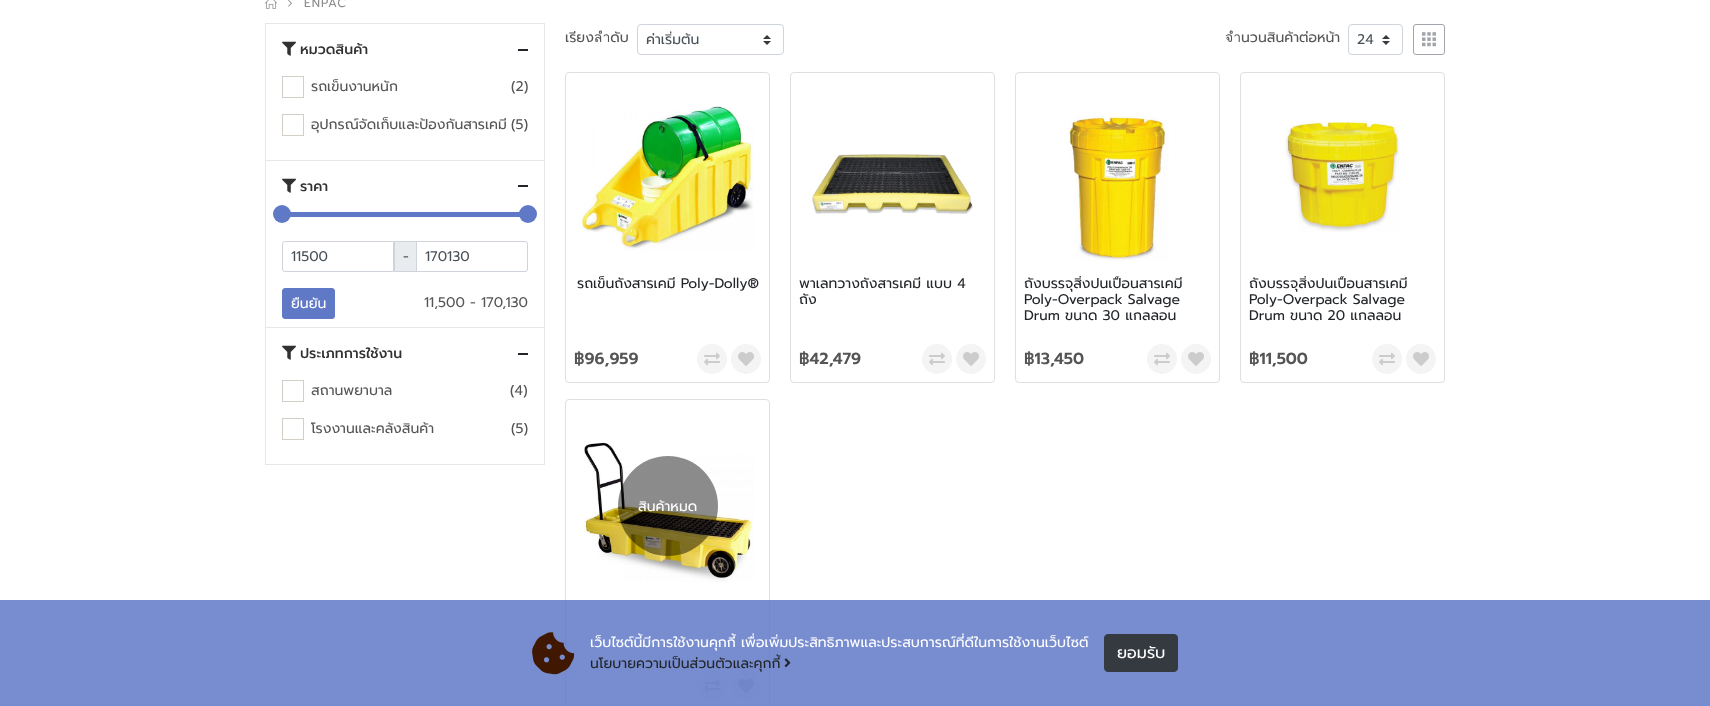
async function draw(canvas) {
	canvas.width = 1710;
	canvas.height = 706;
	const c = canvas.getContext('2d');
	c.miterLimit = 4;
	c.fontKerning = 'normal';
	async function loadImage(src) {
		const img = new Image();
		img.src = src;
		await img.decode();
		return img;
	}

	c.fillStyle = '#fff';
	c.fillRect(0, 0, 1710, 706);
	c.drawImage(await loadImage('img1.png'), 265, 0, 12, 9);
	c.drawImage(await loadImage('img2.png'), 288, 0, 4, 7);
	c.letterSpacing = '1px';
	c.font = '12px Prompt';
	c.fillStyle = '#8e8e8e';
	c.fillText('ENPAC', 304, 7);
	for (const [x, y, w, h, color] of [
		[265, 23, 280, 1, '#e7e7e7'],
		[544, 23, 1, 137, '#e7e7e7'],
		[265, 23, 1, 137, '#e7e7e7'],
	]) {
		c.fillStyle = color;
		c.fillRect(x, y, w, h);
	}
	c.drawImage(await loadImage('img3.png'), 282, 41, 14, 15);
	c.letterSpacing = '0px';
	c.font = '500 14px Prompt';
	c.fillStyle = '#313131';
	c.fillText('หมวดสินค้า', 300, 54);
	c.fillStyle = '#222529';
	c.fillRect(518, 49, 10, 2);
	c.strokeStyle = '#d3cfc8';
	c.strokeRect(282.5, 76.5, 21, 21);
	c.font = '14px Prompt';
	c.fillStyle = '#555';
	c.fillText('รถเข็นงานหนัก', 311, 91);
	c.fillText('(2)', 511, 91);
	c.strokeRect(282.5, 114.5, 21, 21);
	c.fillText('อุปกรณ์จัดเก็บและป้องกันสารเคมี', 311, 129);
	c.fillText('(5)', 511, 129);
	for (const [x, y, w, h, color] of [
		[265, 160, 280, 1, '#e7e7e7'],
		[544, 160, 1, 167, '#e7e7e7'],
		[265, 160, 1, 167, '#e7e7e7'],
	]) {
		c.fillStyle = color;
		c.fillRect(x, y, w, h);
	}
	c.drawImage(await loadImage('img3.png'), 282, 178, 14, 15);
	c.font = '500 14px Prompt';
	c.fillStyle = '#313131';
	c.fillText('ราคา', 300, 191);
	c.fillStyle = '#222529';
	c.fillRect(518, 185, 10, 2);
	c.fillStyle = '#6079c7';
	c.fillRect(282, 212, 246, 5);
	c.beginPath();
	c.arc(282, 214, 9, 0, 2 * Math.PI);
	c.fill();
	c.beginPath();
	c.arc(528, 214, 9, 0, 2 * Math.PI);
	c.fill();
	c.beginPath();
	c.roundRect(282.5, 241.5, 111, 30, [2.5, 0, 0, 2.5]);
	c.strokeStyle = '#ced4da';
	c.stroke();
	c.font = '14px Prompt';
	c.fillStyle = '#495057';
	c.fillText('11500', 291, 261);
	c.fillStyle = '#e9ecef';
	c.beginPath();
	c.rect(394.5, 241.5, 22, 30);
	c.fill();
	c.stroke();
	c.fillStyle = '#495057';
	c.fillText('-', 403, 261);
	c.beginPath();
	c.roundRect(416.5, 241.5, 111, 30, [0, 2.5, 2.5, 0]);
	c.stroke();
	c.fillText('170130', 425, 261);
	c.fillStyle = '#6079c7';
	c.beginPath();
	c.roundRect(282.5, 288.5, 52, 30, 2.5);
	c.fill();
	c.strokeStyle = '#6079c7';
	c.stroke();
	c.fillStyle = '#fff';
	c.fillText('ยืนยัน', 291, 308);
	c.fillStyle = '#555';
	c.fillText('11,500 - 170,130', 424, 307);
	c.strokeStyle = '#e7e7e7';
	c.strokeRect(265.5, 327.5, 279, 137);
	c.drawImage(await loadImage('img3.png'), 282, 345, 14, 15);
	c.font = '500 14px Prompt';
	c.fillStyle = '#313131';
	c.fillText('ประเภทการใช้งาน', 300, 358);
	c.fillStyle = '#222529';
	c.fillRect(518, 353, 10, 2);
	c.strokeStyle = '#d3cfc8';
	c.strokeRect(282.5, 380.5, 21, 21);
	c.font = '14px Prompt';
	c.fillStyle = '#555';
	c.fillText('สถานพยาบาล', 311, 395);
	c.fillText('(4)', 510, 395);
	c.strokeRect(282.5, 418.5, 21, 21);
	for (const [text, x, y] of [
		['โรงงานและคลังสินค้า', 311, 433],
		['(5)', 511, 433],
		['เรียงลำดับ', 565, 42],
	]) {
		c.fillText(text, x, y);
	}
	c.drawImage(await loadImage('img4.png'), 763, 35, 8, 10);
	c.beginPath();
	c.roundRect(637.5, 24.5, 146, 30, 3.5);
	c.strokeStyle = '#ced4da';
	c.stroke();
	c.save();
	c.beginPath();
	c.rect(646, 29, 109, 21);
	c.clip();
	c.fillStyle = '#495057';
	c.fillText('ค่าเริ่มต้น', 646, 44);
	c.restore();
	c.fillText('จำนวนสินค้าต่อหน้า', 1225, 42);
	c.drawImage(await loadImage('img4.png'), 1382, 35, 8, 10);
	c.beginPath();
	c.roundRect(1348.5, 24.5, 54, 30, 3.5);
	c.stroke();
	c.fillStyle = '#495057';
	c.fillText('24', 1357, 44);
	c.beginPath();
	c.roundRect(1413.5, 24.5, 31, 30, 2.5);
	c.strokeStyle = '#9fa5ab';
	c.stroke();
	c.drawImage(await loadImage('img5.png'), 1422, 32, 14, 15);
	c.beginPath();
	c.roundRect(565.5, 72.5, 204, 310, 3.5);
	c.strokeStyle = '#dfdfdf';
	c.stroke();
	c.drawImage(await loadImage('img6.png'), 579, 106, 175, 145);
	c.fillStyle = '#222529';
	c.fillText('รถเข็นถังสารเคมี Poly-Dolly®', 577, 288);
	c.font = '600 16px Prompt';
	c.fillStyle = '#555';
	c.fillText('฿96,959', 574, 364);
	c.fillStyle = '#f4f4f4';
	c.beginPath();
	c.arc(712, 359, 15, 0, 2 * Math.PI);
	c.fill();
	c.drawImage(await loadImage('img7.png'), 704, 352, 16, 14);
	c.beginPath();
	c.arc(746, 359, 15, 0, 2 * Math.PI);
	c.fill();
	c.drawImage(await loadImage('img8.png'), 738, 352, 16, 14);
	c.beginPath();
	c.roundRect(790.5, 72.5, 204, 310, 3.5);
	c.stroke();
	c.drawImage(await loadImage('img9.png'), 812, 154, 161, 60);
	c.font = '14px Prompt';
	c.fillStyle = '#222529';
	c.fillText('พาเลทวางถังสารเคมี แบบ 4', 799, 288);
	c.save();
	c.beginPath();
	c.rect(799, 276, 187, 48);
	c.clip();
	c.fillText('ถัง', 799, 304);
	c.restore();
	c.font = '600 16px Prompt';
	c.fillStyle = '#555';
	c.fillText('฿42,479', 799, 364);
	c.fillStyle = '#f4f4f4';
	c.beginPath();
	c.arc(937, 359, 15, 0, 2 * Math.PI);
	c.fill();
	c.drawImage(await loadImage('img7.png'), 929, 352, 16, 14);
	c.beginPath();
	c.arc(971, 359, 15, 0, 2 * Math.PI);
	c.fill();
	c.drawImage(await loadImage('img8.png'), 963, 352, 16, 14);
	c.beginPath();
	c.roundRect(1015.5, 72.5, 204, 310, 3.5);
	c.stroke();
	c.drawImage(await loadImage('img10.png'), 1069, 116, 100, 145);
	c.save();
	c.beginPath();
	c.rect(1024, 276, 187, 48);
	c.clip();
	c.font = '14px Prompt';
	c.fillStyle = '#222529';
	c.fillText('ถังบรรจุสิ่งปนเปื้อนสารเคมี', 1024, 288);
	c.restore();
	c.font = '14px Prompt';
	c.fillStyle = '#222529';
	c.fillText('Poly-Overpack Salvage', 1024, 304);
	c.fillText('Drum ขนาด 30 แกลลอน', 1024, 320);
	c.font = '600 16px Prompt';
	c.fillStyle = '#555';
	c.fillText('฿13,450', 1024, 364);
	c.fillStyle = '#f4f4f4';
	c.beginPath();
	c.arc(1162, 359, 15, 0, 2 * Math.PI);
	c.fill();
	c.drawImage(await loadImage('img7.png'), 1154, 352, 16, 14);
	c.beginPath();
	c.arc(1196, 359, 15, 0, 2 * Math.PI);
	c.fill();
	c.drawImage(await loadImage('img8.png'), 1188, 352, 16, 14);
	c.beginPath();
	c.roundRect(1240.5, 72.5, 204, 310, 3.5);
	c.stroke();
	c.drawImage(await loadImage('img11.png'), 1284, 121, 116, 111);
	c.save();
	c.beginPath();
	c.rect(1249, 276, 187, 48);
	c.clip();
	c.font = '14px Prompt';
	c.fillStyle = '#222529';
	c.fillText('ถังบรรจุสิ่งปนเปื้อนสารเคมี', 1249, 288);
	c.restore();
	c.font = '14px Prompt';
	c.fillStyle = '#222529';
	c.fillText('Poly-Overpack Salvage', 1249, 304);
	c.fillText('Drum ขนาด 20 แกลลอน', 1249, 320);
	c.font = '600 16px Prompt';
	c.fillStyle = '#555';
	c.fillText('฿11,500', 1249, 364);
	c.fillStyle = '#f4f4f4';
	c.beginPath();
	c.arc(1387, 359, 15, 0, 2 * Math.PI);
	c.fill();
	c.drawImage(await loadImage('img7.png'), 1379, 352, 16, 14);
	c.beginPath();
	c.arc(1421, 359, 15, 0, 2 * Math.PI);
	c.fill();
	c.drawImage(await loadImage('img8.png'), 1413, 352, 16, 14);
	c.beginPath();
	c.roundRect(565.5, 399.5, 204, 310, 3.5);
	c.stroke();
	c.drawImage(await loadImage('img12.png'), 584, 442, 170, 140);
	c.fillStyle = '#00000073';
	c.beginPath();
	c.arc(668, 506, 50, 0, 2 * Math.PI);
	c.fill();
	c.font = '14px Prompt';
	c.fillStyle = '#fff';
	c.fillText('สินค้าหมด', 638, 511);
	c.fillStyle = '#f4f4f4';
	c.beginPath();
	c.arc(712, 686, 15, 0, 2 * Math.PI);
	c.fill();
	c.drawImage(await loadImage('img7.png'), 704, 679, 16, 14);
	c.beginPath();
	c.arc(746, 686, 15, 0, 2 * Math.PI);
	c.fill();
	c.drawImage(await loadImage('img8.png'), 738, 679, 16, 14);
	c.fillStyle = '#6079c7d9';
	c.fillRect(0, 600, 1710, 106);
	c.drawImage(await loadImage('img13.png'), 532, 632, 43, 43);
	c.fillStyle = '#fff';
	c.fillText('เว็บไซต์นี้มีการใช้งานคุกกี้ เพื่อเพิ่มประสิทธิภาพและประสบการณ์ที่ดีในการใช้งานเว็บไซต์', 590, 647);
	c.fillStyle = '#222529';
	c.fillText('นโยบายความเป็นส่วนตัวและคุกกี้', 590, 668);
	c.drawImage(await loadImage('img14.png'), 784, 658, 7, 10);
	c.fillStyle = '#343a40';
	c.beginPath();
	c.roundRect(1104.5, 634.5, 73, 37, 3.5);
	c.fill();
	c.strokeStyle = '#343a40';
	c.stroke();
	c.font = '16px Prompt';
	c.fillStyle = '#fff';
	c.fillText('ยอมรับ', 1117, 658);
}

draw(document.querySelector('canvas'));
